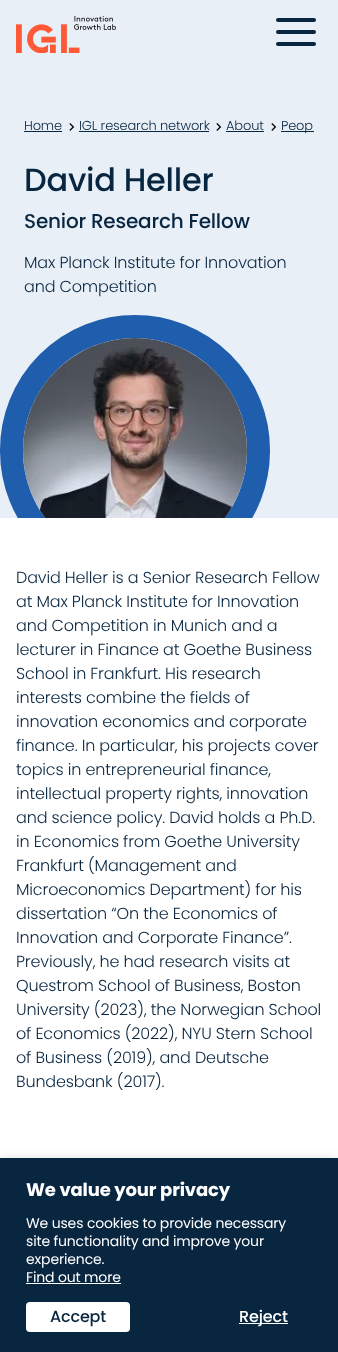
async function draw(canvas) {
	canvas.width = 338;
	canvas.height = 1352;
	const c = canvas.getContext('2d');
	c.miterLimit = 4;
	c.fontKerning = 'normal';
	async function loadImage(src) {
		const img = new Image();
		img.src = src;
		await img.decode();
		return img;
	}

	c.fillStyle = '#fff';
	c.fillRect(0, 0, 338, 1352);
	c.fillStyle = '#e9eff7';
	c.fillRect(0, 0, 338, 518);
	c.drawImage(await loadImage('img1.png'), 16, 16, 100, 37);
	c.fillStyle = '#092640';
	c.beginPath();
	c.roundRect(276, 18, 40, 4, 2);
	c.fill();
	c.beginPath();
	c.roundRect(276, 30, 40, 4, 2);
	c.fill();
	c.beginPath();
	c.roundRect(276, 42, 40, 4, 2);
	c.fill();
	c.letterSpacing = '-0.15px';
	c.font = '300 13px Poppins';
	c.fillText('Home', 24, 130);
	c.fillRect(24, 131, 38, 1);
	c.drawImage(await loadImage('img2.png'), 69, 123, 6, 8);
	c.fillText('IGL research network', 79, 130);
	c.fillRect(79, 131, 130, 1);
	c.drawImage(await loadImage('img2.png'), 216, 123, 6, 8);
	c.fillText('About', 226, 130);
	c.fillRect(226, 131, 38, 1);
	c.drawImage(await loadImage('img2.png'), 271, 123, 6, 8);
	c.fillRect(281, 131, 33, 1);
	c.fillText('Peop', 281, 130);
	c.letterSpacing = '-0.25px';
	c.font = '500 32px Poppins';
	c.fillText('David Heller', 24, 191);
	c.letterSpacing = '-0.2px';
	c.font = '500 20px Poppins';
	c.fillText('Senior Research Fellow', 24, 228);
	c.letterSpacing = '-0.15px';
	c.font = '300 16px Poppins';
	for (const [text, x, y] of [
		['Max Planck Institute for Innovation', 24, 268],
		['and Competition', 24, 292],
		['David Heller is a Senior Research Fellow', 16, 583],
	]) {
		c.fillText(text, x, y);
	}
	c.save();
	c.beginPath();
	c.rect(0, 69, 338, 449);
	c.clip();
	c.beginPath();
	c.roundRect(11.5, 326.5, 247, 248, 123.5);
	c.strokeStyle = '#1f5dad';
	c.lineWidth = 23;
	c.stroke();
	c.restore();
	c.drawImage(await loadImage('img3.png'), 23, 338, 224, 180);
	for (const [text, x, y] of [
		['at Max Planck Institute for Innovation', 16, 607],
		['and Competition in Munich and a', 16, 631],
		['lecturer in Finance at Goethe Business', 16, 655],
		['School in Frankfurt. His research', 16, 679],
		['interests combine the fields of', 16, 703],
		['innovation economics and corporate', 16, 727],
		['finance. In particular, his projects cover', 16, 751],
		['topics in entrepreneurial finance,', 16, 775],
		['intellectual property rights, innovation', 16, 799],
		['and science policy. David holds a Ph.D.', 16, 823],
		['in Economics from Goethe University', 16, 847],
		['Frankfurt (Management and', 16, 871],
		['Microeconomics Department) for his', 16, 895],
		['dissertation “On the Economics of', 16, 919],
		['Innovation and Corporate Finance”.', 16, 943],
		['Previously, he had research visits at', 16, 967],
		['Questrom School of Business, Boston', 16, 991],
		['University (2023), the Norwegian School', 16, 1015],
		['of Economics (2022), NYU Stern School', 16, 1039],
		['of Business (2019), and Deutsche', 16, 1063],
		['Bundesbank (2017).', 16, 1087],
	]) {
		c.fillText(text, x, y);
	}
	c.fillStyle = '#acaaaa4d';
	c.filter = 'blur(5px)';
	c.beginPath();
	c.rect(0, 1157, 338, 194);
	c.fill();
	c.filter = 'none';
	c.fillStyle = '#092640';
	c.fillRect(0, 1158, 338, 194);
	c.font = 'bold 18px Poppins';
	c.fillStyle = '#fff';
	c.fillText('We value your privacy', 26, 1196);
	c.font = '14px Poppins';
	for (const [text, x, y] of [
		['We uses cookies to provide necessary', 26, 1228],
		['site functionality and improve your', 26, 1246],
		['experience.', 26, 1264],
		['Find out more', 26, 1282],
	]) {
		c.fillText(text, x, y);
	}
	c.fillRect(26, 1283, 95, 1);
	c.beginPath();
	c.roundRect(26, 1302, 104, 30, 4);
	c.fill();
	c.font = '500 16px Poppins';
	c.fillStyle = '#092640';
	c.fillText('Accept', 50, 1322);
	c.fillStyle = '#fff';
	c.fillRect(239, 1323, 49, 1);
	c.fillText('Reject', 239, 1322);
}

draw(document.querySelector('canvas'));
